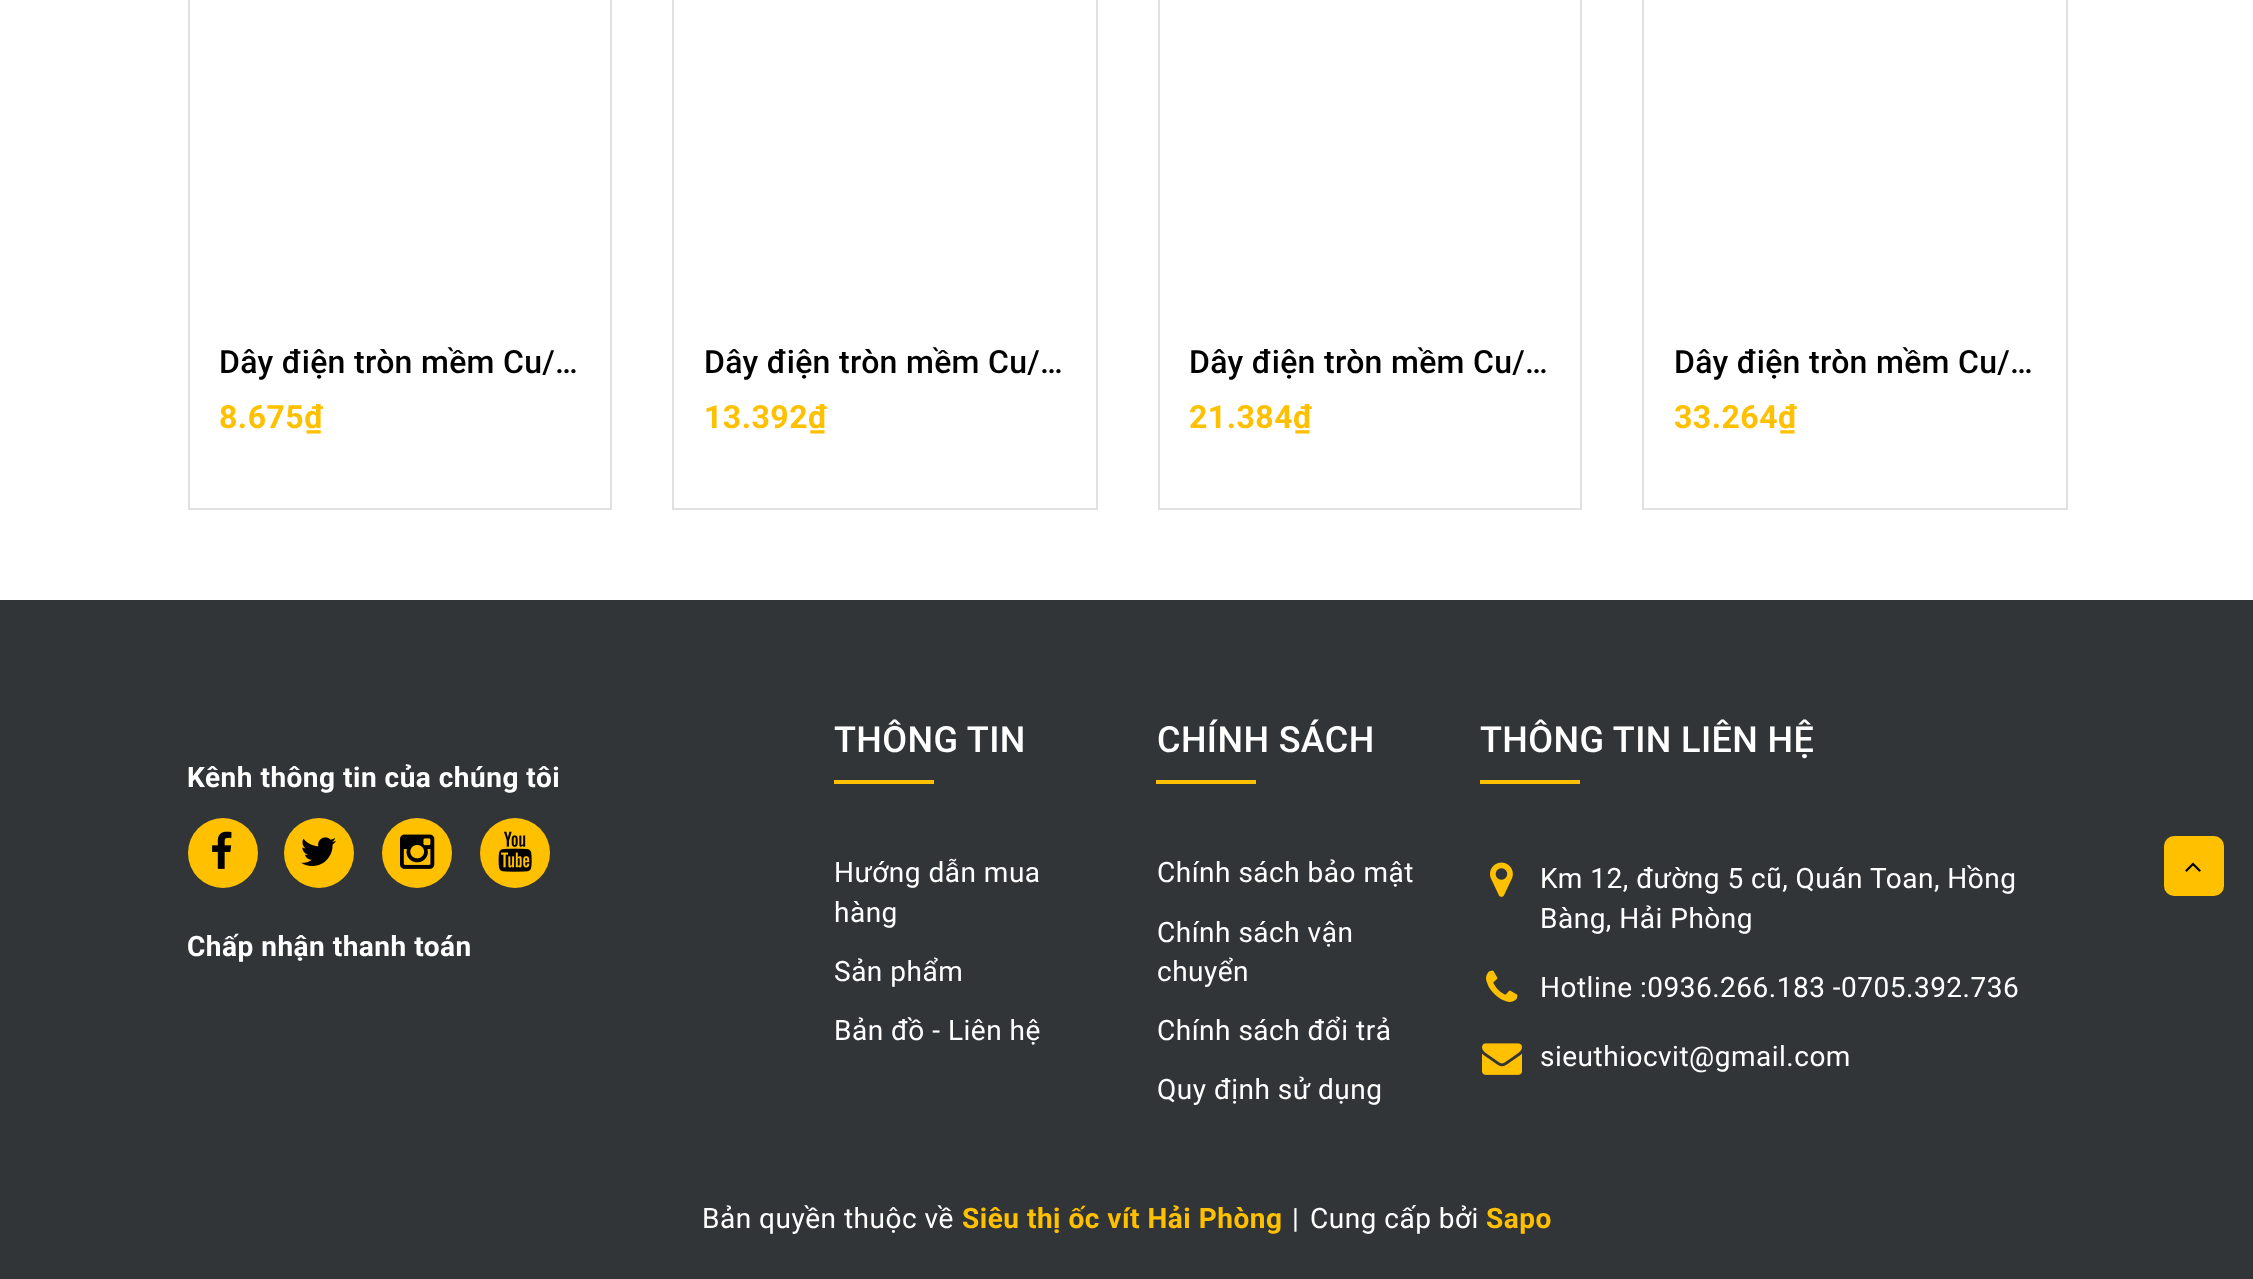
async function draw(canvas) {
	canvas.width = 2253;
	canvas.height = 1279;
	const c = canvas.getContext('2d');
	c.miterLimit = 4;
	c.fontKerning = 'normal';
	async function loadImage(src) {
		const img = new Image();
		img.src = src;
		await img.decode();
		return img;
	}

	c.fillStyle = '#fff';
	c.fillRect(0, 0, 2253, 1279);
	c.strokeStyle = '#e1e1e1';
	c.lineWidth = 2;
	c.strokeRect(189, -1, 422, 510);
	c.letterSpacing = '0.3px';
	c.font = '500 32px Roboto';
	c.fillStyle = '#000';
	c.fillText('Dây điện tròn mềm Cu/…', 219, 373);
	c.letterSpacing = '0.5px';
	c.font = 'bold 32px Roboto';
	c.fillStyle = '#ffc000';
	c.fillText('8.675₫', 219, 428);
	c.strokeRect(673, -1, 424, 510);
	c.letterSpacing = '0.3px';
	c.font = '500 32px Roboto';
	c.fillStyle = '#000';
	c.fillText('Dây điện tròn mềm Cu/…', 704, 373);
	c.letterSpacing = '0.5px';
	c.font = 'bold 32px Roboto';
	c.fillStyle = '#ffc000';
	c.fillText('13.392₫', 704, 428);
	c.strokeRect(1159, -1, 422, 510);
	c.letterSpacing = '0.3px';
	c.font = '500 32px Roboto';
	c.fillStyle = '#000';
	c.fillText('Dây điện tròn mềm Cu/…', 1189, 373);
	c.letterSpacing = '0.5px';
	c.font = 'bold 32px Roboto';
	c.fillStyle = '#ffc000';
	c.fillText('21.384₫', 1189, 428);
	c.strokeRect(1643, -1, 424, 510);
	c.letterSpacing = '0.3px';
	c.font = '500 32px Roboto';
	c.fillStyle = '#000';
	c.fillText('Dây điện tròn mềm Cu/…', 1674, 373);
	c.letterSpacing = '0.5px';
	c.font = 'bold 32px Roboto';
	c.fillStyle = '#ffc000';
	c.fillText('33.264₫', 1674, 428);
	c.fillStyle = '#313537';
	c.fillRect(0, 600, 2253, 679);
	c.font = 'bold 28px Roboto';
	c.fillStyle = '#fff';
	c.fillText('Kênh thông tin của chúng tôi', 187, 787);
	c.fillStyle = '#ffc000';
	c.beginPath();
	c.arc(223, 853, 35, 0, 2 * Math.PI);
	c.fill();
	c.drawImage(await loadImage('img1.png'), 212, 831, 20, 38);
	c.beginPath();
	c.arc(319, 853, 35, 0, 2 * Math.PI);
	c.fill();
	c.drawImage(await loadImage('img2.png'), 301, 837, 35, 29);
	c.beginPath();
	c.arc(417, 853, 35, 0, 2 * Math.PI);
	c.fill();
	c.drawImage(await loadImage('img3.png'), 400, 834, 35, 35);
	c.beginPath();
	c.arc(515, 853, 35, 0, 2 * Math.PI);
	c.fill();
	c.drawImage(await loadImage('img4.png'), 498, 831, 34, 41);
	c.fillStyle = '#fff';
	c.fillText('Chấp nhận thanh toán', 187, 956);
	c.letterSpacing = '0.4px';
	c.font = '500 36px Roboto';
	c.fillText('THÔNG TIN', 834, 752);
	c.fillStyle = '#ffc000';
	c.fillRect(834, 780, 100, 4);
	c.letterSpacing = '0.5px';
	c.font = '28px Roboto';
	c.fillStyle = '#fff';
	for (const [text, x, y] of [
		['Hướng dẫn mua', 834, 882],
		['hàng', 834, 922],
		['Sản phẩm', 834, 981],
		['Bản đồ - Liên hệ', 834, 1040],
	]) {
		c.fillText(text, x, y);
	}
	c.letterSpacing = '0.4px';
	c.font = '500 36px Roboto';
	c.fillText('CHÍNH SÁCH', 1157, 752);
	c.fillStyle = '#ffc000';
	c.fillRect(1156, 780, 100, 4);
	c.letterSpacing = '0.5px';
	c.font = '28px Roboto';
	c.fillStyle = '#fff';
	for (const [text, x, y] of [
		['Chính sách bảo mật', 1157, 882],
		['Chính sách vận', 1157, 942],
		['chuyển', 1157, 981],
		['Chính sách đổi trả', 1157, 1040],
		['Quy định sử dụng', 1157, 1099],
	]) {
		c.fillText(text, x, y);
	}
	c.letterSpacing = '0.4px';
	c.font = '500 36px Roboto';
	c.fillText('THÔNG TIN LIÊN HỆ', 1480, 752);
	c.fillStyle = '#ffc000';
	c.fillRect(1480, 780, 100, 4);
	c.drawImage(await loadImage('img5.png'), 1490, 862, 23, 35);
	c.letterSpacing = '0.5px';
	c.font = '28px Roboto';
	c.fillStyle = '#fff';
	c.fillText('Km 12, đường 5 cũ, Quán Toan, Hồng', 1540, 888);
	c.fillText('Bàng, Hải Phòng', 1540, 928);
	c.drawImage(await loadImage('img6.png'), 1486, 970, 32, 32);
	c.fillText('Hotline :0936.266.183 -0705.392.736', 1540, 997);
	c.drawImage(await loadImage('img7.png'), 1482, 1043, 40, 32);
	c.fillText('sieuthiocvit@gmail.com', 1540, 1066);
	c.fillStyle = '#ffc000';
	c.beginPath();
	c.roundRect(2164, 836, 60, 60, 10);
	c.fill();
	c.drawImage(await loadImage('img8.png'), 2185, 862, 16, 10);
	c.fillStyle = '#fff';
	c.fillText('Bản quyền thuộc về', 702, 1228);
	c.font = 'bold 28px Roboto';
	c.fillStyle = '#ffc000';
	c.fillText('Siêu thị ốc vít Hải Phòng', 962, 1228);
	c.font = '28px Roboto';
	c.fillStyle = '#fff';
	c.fillText('|', 1292, 1228);
	c.fillText('Cung cấp bởi', 1310, 1228);
	c.font = 'bold 28px Roboto';
	c.fillStyle = '#ffc000';
	c.fillText('Sapo', 1486, 1228);
}

draw(document.querySelector('canvas'));
